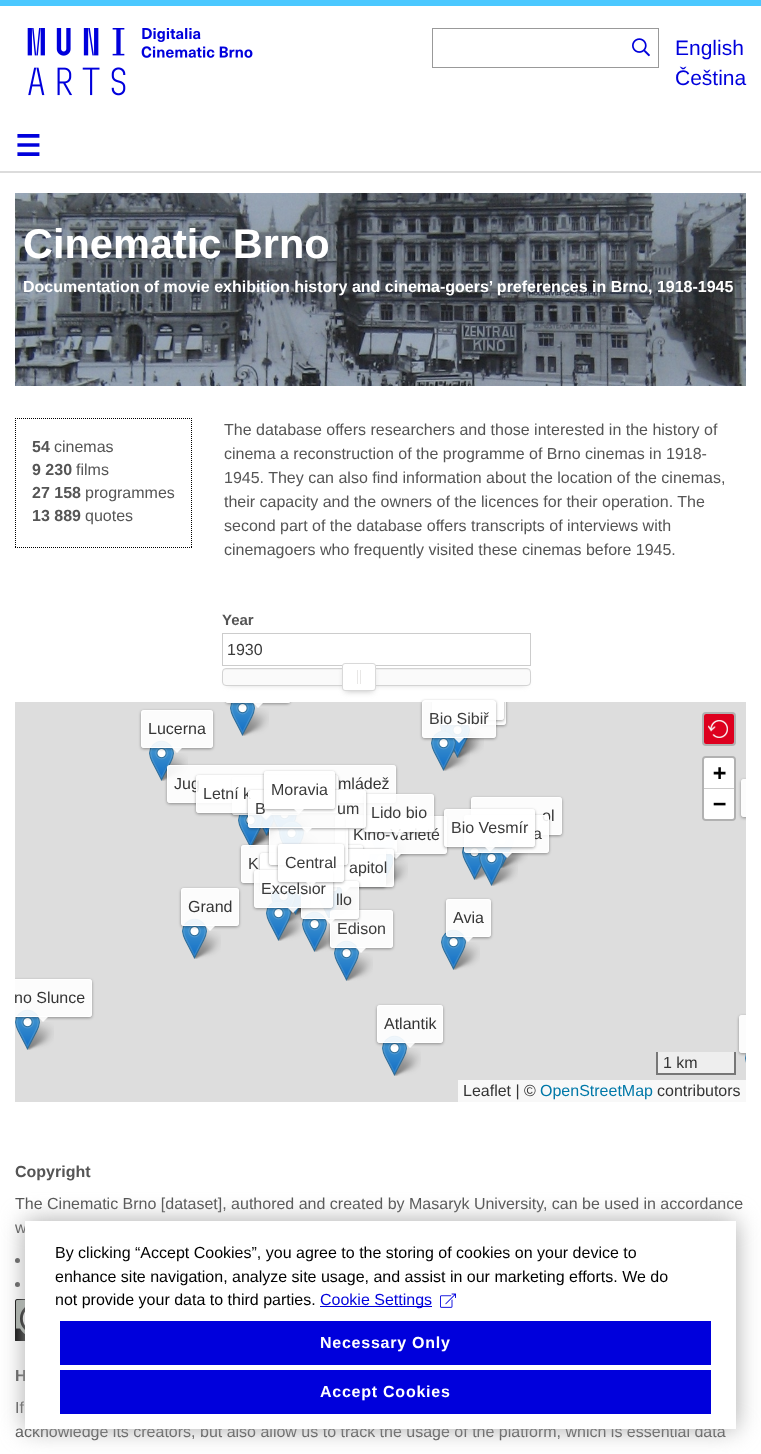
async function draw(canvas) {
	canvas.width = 761;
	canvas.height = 1454;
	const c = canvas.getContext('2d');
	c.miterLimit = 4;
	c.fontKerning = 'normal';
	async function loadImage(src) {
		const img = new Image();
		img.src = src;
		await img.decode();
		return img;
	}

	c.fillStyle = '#fff';
	c.fillRect(0, 0, 761, 1454);
	c.fillStyle = '#4bc8ff';
	c.fillRect(0, 0, 761, 6);
	c.fillStyle = '#dcdcdc';
	c.fillRect(0, 171, 761, 2);
	c.drawImage(await loadImage('img1.png'), 27, 28, 226, 68);
	for (const [x, y, w, h, color] of [
		[432, 28, 227, 1, '#999'],
		[432, 67, 192, 1, '#999'],
		[432, 28, 1, 40, '#999'],
	]) {
		c.fillStyle = color;
		c.fillRect(x, y, w, h);
	}
	c.drawImage(await loadImage('img2.png'), 632, 38, 18, 19);
	c.fillRect(658, 28, 1, 40);
	c.fillRect(624, 67, 35, 1);
	c.font = '21px Liberation Sans';
	c.fillStyle = '#0000dc';
	c.fillText('English', 675, 55);
	c.fillText('Čeština', 675, 85);
	c.font = 'bold 29px DejaVu Sans';
	c.fillText('☰', 15, 156);
	c.drawImage(await loadImage('img3.png'), 15, 193, 731, 193);
	c.font = 'bold 41.5px Liberation Sans';
	c.fillStyle = '#fff';
	c.fillText('Cinematic Brno', 23, 258);
	c.font = 'bold 16px Liberation Sans';
	c.fillText('Documentation of movie exhibition history and cinema-goers’ preferences in Brno, 1918-1945', 23, 292);
	c.beginPath();
	c.moveTo(15, 418.5);
	c.lineTo(192, 418.5);
	c.strokeStyle = '#000';
	c.setLineDash([1, 1]);
	c.stroke();
	c.beginPath();
	c.moveTo(191.5, 418);
	c.lineTo(191.5, 548);
	c.stroke();
	c.beginPath();
	c.moveTo(15, 547.5);
	c.lineTo(192, 547.5);
	c.stroke();
	c.beginPath();
	c.moveTo(15.5, 418);
	c.lineTo(15.5, 548);
	c.stroke();
	c.fillStyle = '#555';
	c.fillText('54', 32, 452);
	c.font = '16px Liberation Sans';
	c.fillText('cinemas', 54, 452);
	c.font = 'bold 16px Liberation Sans';
	c.fillText('9 230', 32, 475);
	c.font = '16px Liberation Sans';
	c.fillText('films', 76, 475);
	c.font = 'bold 16px Liberation Sans';
	c.fillText('27 158', 32, 498);
	c.font = '16px Liberation Sans';
	c.fillText('programmes', 85, 498);
	c.font = 'bold 16px Liberation Sans';
	c.fillText('13 889', 32, 521);
	c.font = '16px Liberation Sans';
	for (const [text, x, y] of [
		['quotes', 85, 521],
		['The database offers researchers and those interested in the history of', 224, 435],
		['cinema a reconstruction of the programme of Brno cinemas in 1918-', 224, 459],
		['1945. They can also find information about the location of the cinemas,', 224, 483],
		['their capacity and the owners of the licences for their operation. The', 224, 507],
		['second part of the database offers transcripts of interviews with', 224, 531],
		['cinemagoers who frequently visited these cinemas before 1945.', 224, 555],
	]) {
		c.fillText(text, x, y);
	}
	c.font = 'bold 15px Liberation Sans';
	c.fillText('Year', 222, 625);
	c.strokeStyle = '#ccc';
	c.setLineDash([]);
	c.strokeRect(222.5, 633.5, 308, 32);
	c.font = '16px Liberation Sans';
	c.fillStyle = '#3b3b3b';
	c.fillText('1930', 227, 655);
	c.fillStyle = '#bbb';
	c.filter = 'blur(3px)';
	c.beginPath();
	c.rect(227, 676, 299, 8);
	c.fill();
	c.filter = 'none';
	c.fillStyle = '#fafafa';
	c.beginPath();
	c.roundRect(222, 668, 309, 18, 4);
	c.fill();
	c.fillStyle = '#f0f0f0';
	c.beginPath();
	c.moveTo(226, 670);
	c.lineTo(527, 670);
	c.bezierCurveTo(529, 670, 530, 671, 530, 673);
	c.lineTo(529, 670);
	c.lineTo(528, 669);
	c.lineTo(226, 669);
	c.bezierCurveTo(224, 669, 223, 671, 223, 673);
	c.bezierCurveTo(223, 671, 224, 670, 226, 670);
	c.closePath();
	c.fill();
	c.beginPath();
	c.roundRect(222.5, 668.5, 308, 17, 3.5);
	c.strokeStyle = '#d3d3d3';
	c.stroke();
	c.fillStyle = '#bbb';
	c.filter = 'blur(3px)';
	c.beginPath();
	c.rect(345, 669, 28, 22);
	c.fill();
	c.filter = 'none';
	c.fillStyle = '#fff';
	c.beginPath();
	c.roundRect(342.5, 663.5, 33, 27, 2.5);
	c.fill();
	c.strokeStyle = '#d9d9d9';
	c.stroke();
	for (const [x, y, w, h, color] of [
		[357, 670, 1, 14, '#e8e7e6'],
		[360, 670, 1, 14, '#e8e7e6'],
		[15, 702, 731, 400, '#ddd'],
	]) {
		c.fillStyle = color;
		c.fillRect(x, y, w, h);
	}
	c.drawImage(await loadImage('img28.png'), 240, 708, 29, 28);
	c.drawImage(await loadImage('img4.png'), 230, 702, 25, 34);
	c.drawImage(await loadImage('img28.png'), 455, 730, 29, 28);
	c.drawImage(await loadImage('img29.png'), 452, 725, 27, 28);
	c.drawImage(await loadImage('img30.png'), 441, 745, 29, 26);
	c.drawImage(await loadImage('img5.png'), 440, 712, 25, 41);
	c.drawImage(await loadImage('img28.png'), 159, 753, 29, 28);
	c.drawImage(await loadImage('img6.png'), 149, 740, 25, 41);
	c.drawImage(await loadImage('img8.png'), 445, 717, 25, 41);
	c.drawImage(await loadImage('img7.png'), 431, 730, 25, 41);
	c.drawImage(await loadImage('img31.png'), 264, 820, 16, 16);
	c.drawImage(await loadImage('img34.png'), 248, 823, 29, 25);
	c.drawImage(await loadImage('img33.png'), 251, 821, 27, 25);
	c.drawImage(await loadImage('img10.png'), 254, 795, 25, 41);
	c.drawImage(await loadImage('img9.png'), 239, 805, 25, 41);
	c.drawImage(await loadImage('img35.png'), 289, 833, 29, 27);
	c.drawImage(await loadImage('img32.png'), 294, 814, 17, 23);
	c.drawImage(await loadImage('img11.png'), 272, 801, 25, 32);
	c.drawImage(await loadImage('img12.png'), 238, 807, 25, 41);
	c.drawImage(await loadImage('img13.png'), 279, 820, 25, 39);
	c.drawImage(await loadImage('img39.png'), 348, 858, 28, 28);
	c.drawImage(await loadImage('img6.png'), 338, 845, 25, 41);
	c.drawImage(await loadImage('img28.png'), 379, 859, 29, 28);
	c.drawImage(await loadImage('img36.png'), 390, 837, 20, 26);
	c.drawImage(await loadImage('img14.png'), 371, 824, 25, 29);
	c.drawImage(await loadImage('img31.png'), 472, 864, 16, 16);
	c.drawImage(await loadImage('img6.png'), 462, 839, 25, 41);
	c.drawImage(await loadImage('img37.png'), 500, 840, 28, 28);
	c.drawImage(await loadImage('img40.png'), 489, 858, 29, 28);
	c.drawImage(await loadImage('img15.png'), 489, 827, 25, 41);
	c.drawImage(await loadImage('img42.png'), 289, 890, 24, 26);
	c.drawImage(await loadImage('img38.png'), 302, 870, 18, 26);
	c.drawImage(await loadImage('img16.png'), 281, 857, 25, 22);
	c.drawImage(await loadImage('img17.png'), 369, 846, 25, 41);
	c.drawImage(await loadImage('img18.png'), 479, 845, 25, 41);
	c.drawImage(await loadImage('img43.png'), 286, 898, 24, 26);
	c.drawImage(await loadImage('img45.png'), 276, 913, 28, 28);
	c.drawImage(await loadImage('img41.png'), 293, 887, 28, 28);
	c.drawImage(await loadImage('img19.png'), 289, 874, 19, 41);
	c.drawImage(await loadImage('img20.png'), 274, 875, 25, 36);
	c.drawImage(await loadImage('img28.png'), 327, 892, 29, 28);
	c.drawImage(await loadImage('img44.png'), 327, 892, 29, 28);
	c.drawImage(await loadImage('img21.png'), 317, 879, 25, 41);
	c.drawImage(await loadImage('img22.png'), 271, 883, 25, 29);
	c.drawImage(await loadImage('img23.png'), 317, 879, 25, 41);
	c.drawImage(await loadImage('img28.png'), 192, 931, 29, 28);
	c.drawImage(await loadImage('img6.png'), 182, 918, 25, 41);
	c.drawImage(await loadImage('img24.png'), 266, 900, 25, 41);
	c.drawImage(await loadImage('img28.png'), 312, 924, 29, 28);
	c.drawImage(await loadImage('img25.png'), 302, 911, 25, 41);
	c.drawImage(await loadImage('img28.png'), 344, 953, 29, 28);
	c.drawImage(await loadImage('img26.png'), 334, 940, 25, 41);
	c.drawImage(await loadImage('img28.png'), 451, 942, 29, 28);
	c.drawImage(await loadImage('img6.png'), 441, 929, 25, 41);
	c.drawImage(await loadImage('img28.png'), 25, 1022, 29, 28);
	c.drawImage(await loadImage('img6.png'), 15, 1009, 25, 41);
	c.drawImage(await loadImage('img28.png'), 392, 1048, 29, 28);
	c.drawImage(await loadImage('img6.png'), 382, 1035, 25, 41);
	c.drawImage(await loadImage('img27.png'), 745, 1053, 1, 10);
	c.save();
	c.beginPath();
	c.rect(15, 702, 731, 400);
	c.clip();
	c.fillStyle = '#0000005c';
	c.filter = 'blur(1.5px)';
	c.beginPath();
	c.roundRect(226, 666, 64, 38, 3);
	c.fill();
	c.filter = 'none';
	c.restore();
	c.fillStyle = '#ffffffe6';
	c.beginPath();
	c.roundRect(226, 702, 64, 1, [0, 0, 3, 3]);
	c.fill();
	c.save();
	c.beginPath();
	c.rect(15, 702, 731, 400);
	c.clip();
	c.beginPath();
	c.roundRect(226.5, 665.5, 63, 37, 2.5);
	c.strokeStyle = '#ffffffe6';
	c.stroke();
	c.restore();
	c.beginPath();
	c.moveTo(252, 702);
	c.lineTo(264, 702);
	c.lineTo(258, 708);
	c.closePath();
	c.fill();
	c.save();
	c.beginPath();
	c.rect(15, 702, 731, 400);
	c.clip();
	c.beginPath();
	c.moveTo(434, 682);
	c.lineTo(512, 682);
	c.lineTo(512, 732);
	c.lineTo(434, 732);
	c.closePath();
	c.moveTo(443, 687);
	c.lineTo(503, 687);
	c.bezierCurveTo(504.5, 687, 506, 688.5, 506, 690);
	c.lineTo(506, 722);
	c.bezierCurveTo(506, 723.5, 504.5, 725, 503, 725);
	c.lineTo(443, 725);
	c.bezierCurveTo(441.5, 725, 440, 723.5, 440, 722);
	c.lineTo(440, 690);
	c.bezierCurveTo(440, 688.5, 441.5, 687, 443, 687);
	c.closePath();
	c.clip('evenodd');
	c.fillStyle = '#0000005c';
	c.filter = 'blur(1.5px)';
	c.beginPath();
	c.roundRect(440, 688, 66, 38, 3);
	c.fill();
	c.filter = 'none';
	c.restore();
	c.beginPath();
	c.roundRect(440, 702, 66, 23, [0, 0, 3, 3]);
	c.fill();
	c.save();
	c.beginPath();
	c.rect(15, 702, 731, 400);
	c.clip();
	c.beginPath();
	c.roundRect(440.5, 687.5, 65, 37, 2.5);
	c.strokeStyle = '#ffffffe6';
	c.stroke();
	c.restore();
	c.beginPath();
	c.moveTo(467, 724);
	c.lineTo(479, 724);
	c.lineTo(473, 730);
	c.closePath();
	c.fill();
	c.save();
	c.beginPath();
	c.rect(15, 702, 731, 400);
	c.clip();
	c.beginPath();
	c.moveTo(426, 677);
	c.lineTo(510, 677);
	c.lineTo(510, 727);
	c.lineTo(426, 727);
	c.closePath();
	c.moveTo(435, 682);
	c.lineTo(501, 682);
	c.bezierCurveTo(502.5, 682, 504, 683.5, 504, 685);
	c.lineTo(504, 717);
	c.bezierCurveTo(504, 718.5, 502.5, 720, 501, 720);
	c.lineTo(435, 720);
	c.bezierCurveTo(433.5, 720, 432, 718.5, 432, 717);
	c.lineTo(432, 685);
	c.bezierCurveTo(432, 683.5, 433.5, 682, 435, 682);
	c.closePath();
	c.clip('evenodd');
	c.fillStyle = '#0000005c';
	c.filter = 'blur(1.5px)';
	c.beginPath();
	c.roundRect(432, 683, 72, 38, 3);
	c.fill();
	c.filter = 'none';
	c.restore();
	c.beginPath();
	c.roundRect(432, 702, 72, 18, [0, 0, 3, 3]);
	c.fill();
	c.save();
	c.beginPath();
	c.rect(15, 702, 731, 400);
	c.clip();
	c.beginPath();
	c.roundRect(432.5, 682.5, 71, 37, 2.5);
	c.strokeStyle = '#ffffffe6';
	c.stroke();
	c.restore();
	c.beginPath();
	c.moveTo(462, 719);
	c.lineTo(474, 719);
	c.lineTo(468, 725);
	c.closePath();
	c.fill();
	c.save();
	c.beginPath();
	c.moveTo(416, 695);
	c.lineTo(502, 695);
	c.lineTo(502, 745);
	c.lineTo(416, 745);
	c.closePath();
	c.moveTo(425, 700);
	c.lineTo(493, 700);
	c.bezierCurveTo(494.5, 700, 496, 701.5, 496, 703);
	c.lineTo(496, 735);
	c.bezierCurveTo(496, 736.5, 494.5, 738, 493, 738);
	c.lineTo(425, 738);
	c.bezierCurveTo(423.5, 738, 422, 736.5, 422, 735);
	c.lineTo(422, 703);
	c.bezierCurveTo(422, 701.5, 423.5, 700, 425, 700);
	c.closePath();
	c.clip('evenodd');
	c.fillStyle = '#0000005c';
	c.filter = 'blur(1.5px)';
	c.beginPath();
	c.roundRect(422, 701, 74, 38, 3);
	c.fill();
	c.filter = 'none';
	c.restore();
	c.save();
	c.beginPath();
	c.rect(15, 702, 731, 400);
	c.clip();
	c.beginPath();
	c.roundRect(422, 700, 74, 38, 3);
	c.fill();
	c.beginPath();
	c.roundRect(422.5, 700.5, 73, 37, 2.5);
	c.strokeStyle = '#ffffffe6';
	c.stroke();
	c.restore();
	c.fillStyle = '#3b3b3b';
	c.fillText('Bio Sibiř', 429, 724);
	c.fillStyle = '#ffffffe6';
	c.beginPath();
	c.moveTo(453, 737);
	c.lineTo(465, 737);
	c.lineTo(459, 743);
	c.closePath();
	c.fill();
	c.save();
	c.beginPath();
	c.moveTo(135, 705);
	c.lineTo(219, 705);
	c.lineTo(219, 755);
	c.lineTo(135, 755);
	c.closePath();
	c.moveTo(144, 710);
	c.lineTo(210, 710);
	c.bezierCurveTo(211.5, 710, 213, 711.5, 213, 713);
	c.lineTo(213, 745);
	c.bezierCurveTo(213, 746.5, 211.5, 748, 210, 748);
	c.lineTo(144, 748);
	c.bezierCurveTo(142.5, 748, 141, 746.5, 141, 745);
	c.lineTo(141, 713);
	c.bezierCurveTo(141, 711.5, 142.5, 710, 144, 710);
	c.closePath();
	c.clip('evenodd');
	c.fillStyle = '#0000005c';
	c.filter = 'blur(1.5px)';
	c.beginPath();
	c.roundRect(141, 711, 72, 38, 3);
	c.fill();
	c.filter = 'none';
	c.restore();
	c.beginPath();
	c.roundRect(141, 710, 72, 38, 3);
	c.fill();
	c.beginPath();
	c.roundRect(141.5, 710.5, 71, 37, 2.5);
	c.strokeStyle = '#ffffffe6';
	c.stroke();
	c.fillStyle = '#353535';
	c.fillText('Lucerna', 148, 734);
	c.fillStyle = '#ffffffe6';
	c.beginPath();
	c.moveTo(171, 747);
	c.lineTo(183, 747);
	c.lineTo(177, 753);
	c.closePath();
	c.fill();
	c.save();
	c.beginPath();
	c.moveTo(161, 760);
	c.lineTo(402, 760);
	c.lineTo(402, 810);
	c.lineTo(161, 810);
	c.closePath();
	c.moveTo(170, 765);
	c.lineTo(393, 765);
	c.bezierCurveTo(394.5, 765, 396, 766.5, 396, 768);
	c.lineTo(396, 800);
	c.bezierCurveTo(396, 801.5, 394.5, 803, 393, 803);
	c.lineTo(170, 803);
	c.bezierCurveTo(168.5, 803, 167, 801.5, 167, 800);
	c.lineTo(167, 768);
	c.bezierCurveTo(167, 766.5, 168.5, 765, 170, 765);
	c.closePath();
	c.clip('evenodd');
	c.fillStyle = '#0000005c';
	c.filter = 'blur(1.5px)';
	c.beginPath();
	c.roundRect(167, 766, 229, 38, 3);
	c.fill();
	c.filter = 'none';
	c.restore();
	c.beginPath();
	c.roundRect(167, 765, 229, 38, 3);
	c.fill();
	c.beginPath();
	c.roundRect(167.5, 765.5, 228, 37, 2.5);
	c.stroke();
	c.beginPath();
	c.moveTo(276, 802);
	c.lineTo(288, 802);
	c.lineTo(282, 808);
	c.closePath();
	c.fill();
	c.save();
	c.beginPath();
	c.moveTo(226, 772);
	c.lineTo(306, 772);
	c.lineTo(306, 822);
	c.lineTo(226, 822);
	c.closePath();
	c.moveTo(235, 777);
	c.lineTo(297, 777);
	c.bezierCurveTo(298.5, 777, 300, 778.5, 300, 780);
	c.lineTo(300, 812);
	c.bezierCurveTo(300, 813.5, 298.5, 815, 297, 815);
	c.lineTo(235, 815);
	c.bezierCurveTo(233.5, 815, 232, 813.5, 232, 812);
	c.lineTo(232, 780);
	c.bezierCurveTo(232, 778.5, 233.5, 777, 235, 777);
	c.closePath();
	c.clip('evenodd');
	c.fillStyle = '#0000005c';
	c.filter = 'blur(1.5px)';
	c.beginPath();
	c.roundRect(232, 778, 68, 38, 3);
	c.fill();
	c.filter = 'none';
	c.restore();
	c.beginPath();
	c.roundRect(232, 777, 68, 38, 3);
	c.fill();
	c.beginPath();
	c.roundRect(232.5, 777.5, 67, 37, 2.5);
	c.stroke();
	c.beginPath();
	c.moveTo(260, 814);
	c.lineTo(272, 814);
	c.lineTo(266, 820);
	c.closePath();
	c.fill();
	c.save();
	c.beginPath();
	c.rect(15, 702, 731, 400);
	c.clip();
	c.fillStyle = '#16161666';
	c.filter = 'blur(1.5px)';
	c.beginPath();
	c.roundRect(741, 780, 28, 38, 3);
	c.fill();
	c.filter = 'none';
	c.restore();
	c.fillStyle = '#fcfcfc';
	c.beginPath();
	c.roundRect(741, 779, 5, 38, [3, 0, 0, 3]);
	c.fill();
	c.save();
	c.beginPath();
	c.rect(15, 702, 731, 400);
	c.clip();
	c.beginPath();
	c.roundRect(741.5, 779.5, 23, 37, 2.5);
	c.strokeStyle = '#fcfcfc';
	c.stroke();
	c.restore();
	c.fillStyle = '#353535';
	c.fillText('Jug', 174, 789);
	c.fillText('mládež', 338, 789);
	c.save();
	c.beginPath();
	c.moveTo(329, 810);
	c.lineTo(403, 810);
	c.lineTo(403, 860);
	c.lineTo(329, 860);
	c.closePath();
	c.moveTo(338, 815);
	c.lineTo(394, 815);
	c.bezierCurveTo(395.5, 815, 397, 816.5, 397, 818);
	c.lineTo(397, 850);
	c.bezierCurveTo(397, 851.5, 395.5, 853, 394, 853);
	c.lineTo(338, 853);
	c.bezierCurveTo(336.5, 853, 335, 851.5, 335, 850);
	c.lineTo(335, 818);
	c.bezierCurveTo(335, 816.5, 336.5, 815, 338, 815);
	c.closePath();
	c.clip('evenodd');
	c.fillStyle = '#0000005c';
	c.filter = 'blur(1.5px)';
	c.beginPath();
	c.roundRect(335, 816, 62, 38, 3);
	c.fill();
	c.filter = 'none';
	c.restore();
	c.fillStyle = '#ffffffe6';
	c.beginPath();
	c.roundRect(335, 815, 62, 38, 3);
	c.fill();
	c.beginPath();
	c.roundRect(335.5, 815.5, 61, 37, 2.5);
	c.stroke();
	c.save();
	c.beginPath();
	c.moveTo(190, 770);
	c.lineTo(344, 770);
	c.lineTo(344, 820);
	c.lineTo(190, 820);
	c.closePath();
	c.moveTo(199, 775);
	c.lineTo(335, 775);
	c.bezierCurveTo(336.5, 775, 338, 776.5, 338, 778);
	c.lineTo(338, 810);
	c.bezierCurveTo(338, 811.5, 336.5, 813, 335, 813);
	c.lineTo(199, 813);
	c.bezierCurveTo(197.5, 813, 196, 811.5, 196, 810);
	c.lineTo(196, 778);
	c.bezierCurveTo(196, 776.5, 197.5, 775, 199, 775);
	c.closePath();
	c.clip('evenodd');
	c.fillStyle = '#0000005c';
	c.filter = 'blur(1.5px)';
	c.beginPath();
	c.roundRect(196, 776, 142, 38, 3);
	c.fill();
	c.filter = 'none';
	c.restore();
	c.beginPath();
	c.roundRect(196, 775, 142, 38, 3);
	c.fill();
	c.beginPath();
	c.roundRect(196.5, 775.5, 141, 37, 2.5);
	c.stroke();
	c.fillStyle = '#3b3b3b';
	c.fillText('Letní k', 203, 799);
	c.fillStyle = '#ffffffe6';
	c.beginPath();
	c.moveTo(261, 812);
	c.lineTo(273, 812);
	c.lineTo(267, 818);
	c.closePath();
	c.fill();
	c.beginPath();
	c.moveTo(360, 852);
	c.lineTo(372, 852);
	c.lineTo(366, 858);
	c.closePath();
	c.fill();
	c.save();
	c.beginPath();
	c.moveTo(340, 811);
	c.lineTo(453, 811);
	c.lineTo(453, 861);
	c.lineTo(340, 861);
	c.closePath();
	c.moveTo(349, 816);
	c.lineTo(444, 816);
	c.bezierCurveTo(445.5, 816, 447, 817.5, 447, 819);
	c.lineTo(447, 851);
	c.bezierCurveTo(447, 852.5, 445.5, 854, 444, 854);
	c.lineTo(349, 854);
	c.bezierCurveTo(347.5, 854, 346, 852.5, 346, 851);
	c.lineTo(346, 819);
	c.bezierCurveTo(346, 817.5, 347.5, 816, 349, 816);
	c.closePath();
	c.clip('evenodd');
	c.fillStyle = '#0000005c';
	c.filter = 'blur(1.5px)';
	c.beginPath();
	c.roundRect(346, 817, 101, 38, 3);
	c.fill();
	c.filter = 'none';
	c.restore();
	c.beginPath();
	c.roundRect(346, 816, 101, 38, 3);
	c.fill();
	c.beginPath();
	c.roundRect(346.5, 816.5, 100, 37, 2.5);
	c.stroke();
	c.save();
	c.beginPath();
	c.moveTo(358, 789);
	c.lineTo(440, 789);
	c.lineTo(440, 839);
	c.lineTo(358, 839);
	c.closePath();
	c.moveTo(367, 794);
	c.lineTo(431, 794);
	c.bezierCurveTo(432.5, 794, 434, 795.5, 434, 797);
	c.lineTo(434, 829);
	c.bezierCurveTo(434, 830.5, 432.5, 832, 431, 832);
	c.lineTo(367, 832);
	c.bezierCurveTo(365.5, 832, 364, 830.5, 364, 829);
	c.lineTo(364, 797);
	c.bezierCurveTo(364, 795.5, 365.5, 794, 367, 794);
	c.closePath();
	c.clip('evenodd');
	c.fillStyle = '#0000005c';
	c.filter = 'blur(1.5px)';
	c.beginPath();
	c.roundRect(364, 795, 70, 38, 3);
	c.fill();
	c.filter = 'none';
	c.restore();
	c.fillStyle = '#3b3b3b';
	c.fillText('Kino-Varieté', 353, 840);
	c.fillStyle = '#ffffffe6';
	c.beginPath();
	c.roundRect(364, 794, 70, 38, 3);
	c.fill();
	c.beginPath();
	c.roundRect(364.5, 794.5, 69, 37, 2.5);
	c.stroke();
	c.beginPath();
	c.moveTo(390, 853);
	c.lineTo(402, 853);
	c.lineTo(396, 859);
	c.closePath();
	c.fill();
	c.save();
	c.beginPath();
	c.moveTo(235, 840);
	c.lineTo(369, 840);
	c.lineTo(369, 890);
	c.lineTo(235, 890);
	c.closePath();
	c.moveTo(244, 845);
	c.lineTo(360, 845);
	c.bezierCurveTo(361.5, 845, 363, 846.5, 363, 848);
	c.lineTo(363, 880);
	c.bezierCurveTo(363, 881.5, 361.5, 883, 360, 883);
	c.lineTo(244, 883);
	c.bezierCurveTo(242.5, 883, 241, 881.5, 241, 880);
	c.lineTo(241, 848);
	c.bezierCurveTo(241, 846.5, 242.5, 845, 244, 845);
	c.closePath();
	c.clip('evenodd');
	c.fillStyle = '#0000005c';
	c.filter = 'blur(1.5px)';
	c.beginPath();
	c.roundRect(241, 846, 122, 38, 3);
	c.fill();
	c.filter = 'none';
	c.restore();
	c.beginPath();
	c.roundRect(241, 845, 122, 38, 3);
	c.fill();
	c.beginPath();
	c.roundRect(241.5, 845.5, 121, 37, 2.5);
	c.stroke();
	c.beginPath();
	c.moveTo(296, 882);
	c.lineTo(308, 882);
	c.lineTo(302, 888);
	c.closePath();
	c.fill();
	c.save();
	c.beginPath();
	c.moveTo(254, 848);
	c.lineTo(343, 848);
	c.lineTo(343, 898);
	c.lineTo(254, 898);
	c.closePath();
	c.moveTo(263, 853);
	c.lineTo(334, 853);
	c.bezierCurveTo(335.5, 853, 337, 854.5, 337, 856);
	c.lineTo(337, 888);
	c.bezierCurveTo(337, 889.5, 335.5, 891, 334, 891);
	c.lineTo(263, 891);
	c.bezierCurveTo(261.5, 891, 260, 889.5, 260, 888);
	c.lineTo(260, 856);
	c.bezierCurveTo(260, 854.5, 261.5, 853, 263, 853);
	c.closePath();
	c.clip('evenodd');
	c.fillStyle = '#0000005c';
	c.filter = 'blur(1.5px)';
	c.beginPath();
	c.roundRect(260, 854, 77, 38, 3);
	c.fill();
	c.filter = 'none';
	c.restore();
	c.beginPath();
	c.roundRect(260, 853, 77, 38, 3);
	c.fill();
	c.beginPath();
	c.roundRect(260.5, 853.5, 76, 37, 2.5);
	c.stroke();
	c.beginPath();
	c.moveTo(293, 890);
	c.lineTo(305, 890);
	c.lineTo(299, 896);
	c.closePath();
	c.fill();
	c.save();
	c.beginPath();
	c.moveTo(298, 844);
	c.lineTo(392, 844);
	c.lineTo(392, 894);
	c.lineTo(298, 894);
	c.closePath();
	c.moveTo(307, 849);
	c.lineTo(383, 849);
	c.bezierCurveTo(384.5, 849, 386, 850.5, 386, 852);
	c.lineTo(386, 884);
	c.bezierCurveTo(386, 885.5, 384.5, 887, 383, 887);
	c.lineTo(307, 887);
	c.bezierCurveTo(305.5, 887, 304, 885.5, 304, 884);
	c.lineTo(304, 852);
	c.bezierCurveTo(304, 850.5, 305.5, 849, 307, 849);
	c.closePath();
	c.clip('evenodd');
	c.fillStyle = '#0000005c';
	c.filter = 'blur(1.5px)';
	c.beginPath();
	c.roundRect(304, 850, 82, 38, 3);
	c.fill();
	c.filter = 'none';
	c.restore();
	c.beginPath();
	c.roundRect(304, 849, 82, 38, 3);
	c.fill();
	c.beginPath();
	c.roundRect(304.5, 849.5, 81, 37, 2.5);
	c.stroke();
	c.beginPath();
	c.moveTo(339, 886);
	c.lineTo(351, 886);
	c.lineTo(345, 892);
	c.closePath();
	c.fill();
	c.save();
	c.beginPath();
	c.moveTo(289, 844);
	c.lineTo(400, 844);
	c.lineTo(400, 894);
	c.lineTo(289, 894);
	c.closePath();
	c.moveTo(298, 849);
	c.lineTo(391, 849);
	c.bezierCurveTo(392.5, 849, 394, 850.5, 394, 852);
	c.lineTo(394, 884);
	c.bezierCurveTo(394, 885.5, 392.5, 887, 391, 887);
	c.lineTo(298, 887);
	c.bezierCurveTo(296.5, 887, 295, 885.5, 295, 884);
	c.lineTo(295, 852);
	c.bezierCurveTo(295, 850.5, 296.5, 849, 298, 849);
	c.closePath();
	c.clip('evenodd');
	c.fillStyle = '#0000005c';
	c.filter = 'blur(1.5px)';
	c.beginPath();
	c.roundRect(295, 850, 99, 38, 3);
	c.fill();
	c.filter = 'none';
	c.restore();
	c.beginPath();
	c.roundRect(295, 849, 99, 38, 3);
	c.fill();
	c.beginPath();
	c.roundRect(295.5, 849.5, 98, 37, 2.5);
	c.stroke();
	c.save();
	c.beginPath();
	c.moveTo(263, 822);
	c.lineTo(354, 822);
	c.lineTo(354, 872);
	c.lineTo(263, 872);
	c.closePath();
	c.moveTo(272, 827);
	c.lineTo(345, 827);
	c.bezierCurveTo(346.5, 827, 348, 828.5, 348, 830);
	c.lineTo(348, 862);
	c.bezierCurveTo(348, 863.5, 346.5, 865, 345, 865);
	c.lineTo(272, 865);
	c.bezierCurveTo(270.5, 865, 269, 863.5, 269, 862);
	c.lineTo(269, 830);
	c.bezierCurveTo(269, 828.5, 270.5, 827, 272, 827);
	c.closePath();
	c.clip('evenodd');
	c.fillStyle = '#0000005c';
	c.filter = 'blur(1.5px)';
	c.beginPath();
	c.roundRect(269, 828, 79, 38, 3);
	c.fill();
	c.filter = 'none';
	c.restore();
	c.beginPath();
	c.roundRect(269, 827, 79, 38, 3);
	c.fill();
	c.beginPath();
	c.roundRect(269.5, 827.5, 78, 37, 2.5);
	c.stroke();
	c.save();
	c.beginPath();
	c.moveTo(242, 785);
	c.lineTo(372, 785);
	c.lineTo(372, 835);
	c.lineTo(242, 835);
	c.closePath();
	c.moveTo(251, 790);
	c.lineTo(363, 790);
	c.bezierCurveTo(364.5, 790, 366, 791.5, 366, 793);
	c.lineTo(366, 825);
	c.bezierCurveTo(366, 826.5, 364.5, 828, 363, 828);
	c.lineTo(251, 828);
	c.bezierCurveTo(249.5, 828, 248, 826.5, 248, 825);
	c.lineTo(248, 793);
	c.bezierCurveTo(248, 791.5, 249.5, 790, 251, 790);
	c.closePath();
	c.clip('evenodd');
	c.fillStyle = '#0000005c';
	c.filter = 'blur(1.5px)';
	c.beginPath();
	c.roundRect(248, 791, 118, 38, 3);
	c.fill();
	c.filter = 'none';
	c.restore();
	c.beginPath();
	c.roundRect(248, 790, 118, 38, 3);
	c.fill();
	c.beginPath();
	c.roundRect(248.5, 790.5, 117, 37, 2.5);
	c.stroke();
	c.save();
	c.beginPath();
	c.moveTo(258, 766);
	c.lineTo(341, 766);
	c.lineTo(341, 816);
	c.lineTo(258, 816);
	c.closePath();
	c.moveTo(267, 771);
	c.lineTo(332, 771);
	c.bezierCurveTo(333.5, 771, 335, 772.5, 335, 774);
	c.lineTo(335, 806);
	c.bezierCurveTo(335, 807.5, 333.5, 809, 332, 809);
	c.lineTo(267, 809);
	c.bezierCurveTo(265.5, 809, 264, 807.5, 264, 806);
	c.lineTo(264, 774);
	c.bezierCurveTo(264, 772.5, 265.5, 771, 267, 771);
	c.closePath();
	c.clip('evenodd');
	c.fillStyle = '#0000005c';
	c.filter = 'blur(1.5px)';
	c.beginPath();
	c.roundRect(264, 772, 71, 38, 3);
	c.fill();
	c.filter = 'none';
	c.restore();
	c.fillStyle = '#3b3b3b';
	c.fillText('B', 255, 814);
	c.fillStyle = '#ffffffe6';
	c.beginPath();
	c.roundRect(264, 771, 71, 38, 3);
	c.fill();
	c.beginPath();
	c.roundRect(264.5, 771.5, 70, 37, 2.5);
	c.stroke();
	c.fillStyle = '#3b3b3b';
	c.fillText('Moravia', 271, 795);
	c.fillStyle = '#ffffffe6';
	c.beginPath();
	c.moveTo(293, 808);
	c.lineTo(305, 808);
	c.lineTo(299, 814);
	c.closePath();
	c.fill();
	c.fillStyle = '#3b3b3b';
	c.fillText('um', 337, 814);
	c.fillStyle = '#ffffffe6';
	c.beginPath();
	c.moveTo(301, 827);
	c.lineTo(313, 827);
	c.lineTo(307, 833);
	c.closePath();
	c.fill();
	c.fillStyle = '#3b3b3b';
	c.fillText('Lido bio', 371, 818);
	c.fillStyle = '#ffffffe6';
	c.beginPath();
	c.moveTo(393, 831);
	c.lineTo(405, 831);
	c.lineTo(399, 837);
	c.closePath();
	c.fill();
	c.save();
	c.beginPath();
	c.moveTo(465, 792);
	c.lineTo(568, 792);
	c.lineTo(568, 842);
	c.lineTo(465, 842);
	c.closePath();
	c.moveTo(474, 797);
	c.lineTo(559, 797);
	c.bezierCurveTo(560.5, 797, 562, 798.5, 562, 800);
	c.lineTo(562, 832);
	c.bezierCurveTo(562, 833.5, 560.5, 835, 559, 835);
	c.lineTo(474, 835);
	c.bezierCurveTo(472.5, 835, 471, 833.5, 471, 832);
	c.lineTo(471, 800);
	c.bezierCurveTo(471, 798.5, 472.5, 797, 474, 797);
	c.closePath();
	c.clip('evenodd');
	c.fillStyle = '#0000005c';
	c.filter = 'blur(1.5px)';
	c.beginPath();
	c.roundRect(471, 798, 91, 38, 3);
	c.fill();
	c.filter = 'none';
	c.restore();
	c.beginPath();
	c.roundRect(471, 797, 91, 38, 3);
	c.fill();
	c.beginPath();
	c.roundRect(471.5, 797.5, 90, 37, 2.5);
	c.stroke();
	c.fillStyle = '#353535';
	c.fillText('ol', 542, 821);
	c.fillStyle = '#ffffffe6';
	c.beginPath();
	c.moveTo(510, 834);
	c.lineTo(522, 834);
	c.lineTo(516, 840);
	c.closePath();
	c.fill();
	c.beginPath();
	c.moveTo(302, 864);
	c.lineTo(314, 864);
	c.lineTo(308, 870);
	c.closePath();
	c.fill();
	c.save();
	c.beginPath();
	c.moveTo(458, 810);
	c.lineTo(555, 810);
	c.lineTo(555, 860);
	c.lineTo(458, 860);
	c.closePath();
	c.moveTo(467, 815);
	c.lineTo(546, 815);
	c.bezierCurveTo(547.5, 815, 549, 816.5, 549, 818);
	c.lineTo(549, 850);
	c.bezierCurveTo(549, 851.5, 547.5, 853, 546, 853);
	c.lineTo(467, 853);
	c.bezierCurveTo(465.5, 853, 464, 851.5, 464, 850);
	c.lineTo(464, 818);
	c.bezierCurveTo(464, 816.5, 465.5, 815, 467, 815);
	c.closePath();
	c.clip('evenodd');
	c.fillStyle = '#0000005c';
	c.filter = 'blur(1.5px)';
	c.beginPath();
	c.roundRect(464, 816, 85, 38, 3);
	c.fill();
	c.filter = 'none';
	c.restore();
	c.beginPath();
	c.roundRect(464, 815, 85, 38, 3);
	c.fill();
	c.beginPath();
	c.roundRect(464.5, 815.5, 84, 37, 2.5);
	c.stroke();
	c.beginPath();
	c.moveTo(501, 852);
	c.lineTo(513, 852);
	c.lineTo(507, 858);
	c.closePath();
	c.fill();
	c.save();
	c.beginPath();
	c.moveTo(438, 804);
	c.lineTo(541, 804);
	c.lineTo(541, 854);
	c.lineTo(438, 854);
	c.closePath();
	c.moveTo(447, 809);
	c.lineTo(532, 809);
	c.bezierCurveTo(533.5, 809, 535, 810.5, 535, 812);
	c.lineTo(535, 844);
	c.bezierCurveTo(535, 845.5, 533.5, 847, 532, 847);
	c.lineTo(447, 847);
	c.bezierCurveTo(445.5, 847, 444, 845.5, 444, 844);
	c.lineTo(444, 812);
	c.bezierCurveTo(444, 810.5, 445.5, 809, 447, 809);
	c.closePath();
	c.clip('evenodd');
	c.fillStyle = '#0000005c';
	c.filter = 'blur(1.5px)';
	c.beginPath();
	c.roundRect(444, 810, 91, 38, 3);
	c.fill();
	c.filter = 'none';
	c.restore();
	c.fillStyle = '#3b3b3b';
	c.fillText('a', 533, 839);
	c.fillStyle = '#ffffffe6';
	c.beginPath();
	c.roundRect(444, 809, 91, 38, 3);
	c.fill();
	c.beginPath();
	c.roundRect(444.5, 809.5, 90, 37, 2.5);
	c.stroke();
	c.fillStyle = '#3b3b3b';
	c.fillText('Bio Vesmír', 451, 833);
	c.fillStyle = '#ffffffe6';
	c.beginPath();
	c.moveTo(484, 846);
	c.lineTo(496, 846);
	c.lineTo(490, 852);
	c.closePath();
	c.fill();
	c.fillStyle = '#3b3b3b';
	c.fillText('K', 248, 869);
	c.fillStyle = '#ffffffe6';
	c.beginPath();
	c.moveTo(339, 886);
	c.lineTo(351, 886);
	c.lineTo(345, 892);
	c.closePath();
	c.fill();
	c.save();
	c.beginPath();
	c.moveTo(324, 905);
	c.lineTo(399, 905);
	c.lineTo(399, 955);
	c.lineTo(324, 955);
	c.closePath();
	c.moveTo(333, 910);
	c.lineTo(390, 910);
	c.bezierCurveTo(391.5, 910, 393, 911.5, 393, 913);
	c.lineTo(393, 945);
	c.bezierCurveTo(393, 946.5, 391.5, 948, 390, 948);
	c.lineTo(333, 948);
	c.bezierCurveTo(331.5, 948, 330, 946.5, 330, 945);
	c.lineTo(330, 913);
	c.bezierCurveTo(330, 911.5, 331.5, 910, 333, 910);
	c.closePath();
	c.clip('evenodd');
	c.fillStyle = '#0000005c';
	c.filter = 'blur(1.5px)';
	c.beginPath();
	c.roundRect(330, 911, 63, 38, 3);
	c.fill();
	c.filter = 'none';
	c.restore();
	c.beginPath();
	c.roundRect(330, 910, 63, 38, 3);
	c.fill();
	c.beginPath();
	c.roundRect(330.5, 910.5, 62, 37, 2.5);
	c.stroke();
	c.save();
	c.beginPath();
	c.moveTo(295, 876);
	c.lineTo(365, 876);
	c.lineTo(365, 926);
	c.lineTo(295, 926);
	c.closePath();
	c.moveTo(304, 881);
	c.lineTo(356, 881);
	c.bezierCurveTo(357.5, 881, 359, 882.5, 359, 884);
	c.lineTo(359, 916);
	c.bezierCurveTo(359, 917.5, 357.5, 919, 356, 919);
	c.lineTo(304, 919);
	c.bezierCurveTo(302.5, 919, 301, 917.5, 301, 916);
	c.lineTo(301, 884);
	c.bezierCurveTo(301, 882.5, 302.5, 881, 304, 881);
	c.closePath();
	c.clip('evenodd');
	c.fillStyle = '#0000005c';
	c.filter = 'blur(1.5px)';
	c.beginPath();
	c.roundRect(301, 882, 58, 38, 3);
	c.fill();
	c.filter = 'none';
	c.restore();
	c.beginPath();
	c.roundRect(301, 881, 58, 38, 3);
	c.fill();
	c.beginPath();
	c.roundRect(301.5, 881.5, 57, 37, 2.5);
	c.stroke();
	c.save();
	c.beginPath();
	c.moveTo(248, 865);
	c.lineTo(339, 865);
	c.lineTo(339, 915);
	c.lineTo(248, 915);
	c.closePath();
	c.moveTo(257, 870);
	c.lineTo(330, 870);
	c.bezierCurveTo(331.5, 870, 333, 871.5, 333, 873);
	c.lineTo(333, 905);
	c.bezierCurveTo(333, 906.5, 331.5, 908, 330, 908);
	c.lineTo(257, 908);
	c.bezierCurveTo(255.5, 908, 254, 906.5, 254, 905);
	c.lineTo(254, 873);
	c.bezierCurveTo(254, 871.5, 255.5, 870, 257, 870);
	c.closePath();
	c.clip('evenodd');
	c.fillStyle = '#0000005c';
	c.filter = 'blur(1.5px)';
	c.beginPath();
	c.roundRect(254, 871, 79, 38, 3);
	c.fill();
	c.filter = 'none';
	c.restore();
	c.beginPath();
	c.roundRect(254, 870, 79, 38, 3);
	c.fill();
	c.beginPath();
	c.roundRect(254.5, 870.5, 78, 37, 2.5);
	c.stroke();
	c.save();
	c.beginPath();
	c.moveTo(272, 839);
	c.lineTo(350, 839);
	c.lineTo(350, 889);
	c.lineTo(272, 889);
	c.closePath();
	c.moveTo(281, 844);
	c.lineTo(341, 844);
	c.bezierCurveTo(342.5, 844, 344, 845.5, 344, 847);
	c.lineTo(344, 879);
	c.bezierCurveTo(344, 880.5, 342.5, 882, 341, 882);
	c.lineTo(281, 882);
	c.bezierCurveTo(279.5, 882, 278, 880.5, 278, 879);
	c.lineTo(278, 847);
	c.bezierCurveTo(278, 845.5, 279.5, 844, 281, 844);
	c.closePath();
	c.clip('evenodd');
	c.fillStyle = '#0000005c';
	c.filter = 'blur(1.5px)';
	c.beginPath();
	c.roundRect(278, 845, 66, 38, 3);
	c.fill();
	c.filter = 'none';
	c.restore();
	c.beginPath();
	c.roundRect(278, 844, 66, 38, 3);
	c.fill();
	c.beginPath();
	c.roundRect(278.5, 844.5, 65, 37, 2.5);
	c.stroke();
	c.fillStyle = '#3b3b3b';
	c.fillText('Central', 285, 868);
	c.fillText('Excelsior', 261, 894);
	c.fillStyle = '#ffffffe6';
	c.beginPath();
	c.moveTo(305, 881);
	c.lineTo(317, 881);
	c.lineTo(311, 887);
	c.closePath();
	c.fill();
	c.fillStyle = '#3b3b3b';
	c.fillText('apitol', 349, 873);
	c.fillStyle = '#ffffffe6';
	c.beginPath();
	c.moveTo(287, 907);
	c.lineTo(299, 907);
	c.lineTo(293, 913);
	c.closePath();
	c.fill();
	c.save();
	c.beginPath();
	c.moveTo(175, 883);
	c.lineTo(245, 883);
	c.lineTo(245, 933);
	c.lineTo(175, 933);
	c.closePath();
	c.moveTo(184, 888);
	c.lineTo(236, 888);
	c.bezierCurveTo(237.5, 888, 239, 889.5, 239, 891);
	c.lineTo(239, 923);
	c.bezierCurveTo(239, 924.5, 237.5, 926, 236, 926);
	c.lineTo(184, 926);
	c.bezierCurveTo(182.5, 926, 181, 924.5, 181, 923);
	c.lineTo(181, 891);
	c.bezierCurveTo(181, 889.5, 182.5, 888, 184, 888);
	c.closePath();
	c.clip('evenodd');
	c.fillStyle = '#0000005c';
	c.filter = 'blur(1.5px)';
	c.beginPath();
	c.roundRect(181, 889, 58, 38, 3);
	c.fill();
	c.filter = 'none';
	c.restore();
	c.beginPath();
	c.roundRect(181, 888, 58, 38, 3);
	c.fill();
	c.beginPath();
	c.roundRect(181.5, 888.5, 57, 37, 2.5);
	c.stroke();
	c.fillStyle = '#353535';
	c.fillText('Grand', 188, 912);
	c.fillStyle = '#ffffffe6';
	c.beginPath();
	c.moveTo(204, 925);
	c.lineTo(216, 925);
	c.lineTo(210, 931);
	c.closePath();
	c.fill();
	c.fillStyle = '#3b3b3b';
	c.fillText('llo', 336, 905);
	c.fillStyle = '#ffffffe6';
	c.beginPath();
	c.moveTo(324, 918);
	c.lineTo(336, 918);
	c.lineTo(330, 924);
	c.closePath();
	c.fill();
	c.save();
	c.beginPath();
	c.moveTo(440, 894);
	c.lineTo(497, 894);
	c.lineTo(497, 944);
	c.lineTo(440, 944);
	c.closePath();
	c.moveTo(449, 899);
	c.lineTo(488, 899);
	c.bezierCurveTo(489.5, 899, 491, 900.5, 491, 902);
	c.lineTo(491, 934);
	c.bezierCurveTo(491, 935.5, 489.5, 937, 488, 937);
	c.lineTo(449, 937);
	c.bezierCurveTo(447.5, 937, 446, 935.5, 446, 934);
	c.lineTo(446, 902);
	c.bezierCurveTo(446, 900.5, 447.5, 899, 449, 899);
	c.closePath();
	c.clip('evenodd');
	c.fillStyle = '#0000005c';
	c.filter = 'blur(1.5px)';
	c.beginPath();
	c.roundRect(446, 900, 45, 38, 3);
	c.fill();
	c.filter = 'none';
	c.restore();
	c.beginPath();
	c.roundRect(446, 899, 45, 38, 3);
	c.fill();
	c.beginPath();
	c.roundRect(446.5, 899.5, 44, 37, 2.5);
	c.stroke();
	c.fillStyle = '#353535';
	c.fillText('Avia', 453, 923);
	c.fillStyle = '#ffffffe6';
	c.beginPath();
	c.moveTo(462, 936);
	c.lineTo(474, 936);
	c.lineTo(468, 942);
	c.closePath();
	c.fill();
	c.fillStyle = '#3b3b3b';
	c.fillText('Edison', 337, 934);
	c.fillStyle = '#ffffffe6';
	c.beginPath();
	c.moveTo(355, 947);
	c.lineTo(367, 947);
	c.lineTo(361, 953);
	c.closePath();
	c.fill();
	c.save();
	c.beginPath();
	c.rect(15, 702, 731, 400);
	c.clip();
	c.beginPath();
	c.moveTo(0, 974);
	c.lineTo(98, 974);
	c.lineTo(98, 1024);
	c.lineTo(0, 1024);
	c.closePath();
	c.moveTo(-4, 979);
	c.lineTo(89, 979);
	c.bezierCurveTo(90.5, 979, 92, 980.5, 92, 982);
	c.lineTo(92, 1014);
	c.bezierCurveTo(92, 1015.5, 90.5, 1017, 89, 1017);
	c.lineTo(-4, 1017);
	c.bezierCurveTo(-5.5, 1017, -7, 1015.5, -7, 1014);
	c.lineTo(-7, 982);
	c.bezierCurveTo(-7, 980.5, -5.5, 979, -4, 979);
	c.closePath();
	c.clip('evenodd');
	c.fillStyle = '#0000005c';
	c.filter = 'blur(1.5px)';
	c.beginPath();
	c.roundRect(-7, 980, 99, 38, 3);
	c.fill();
	c.filter = 'none';
	c.restore();
	c.beginPath();
	c.roundRect(15, 979, 77, 38, [0, 3, 3, 0]);
	c.fill();
	c.save();
	c.beginPath();
	c.rect(15, 702, 731, 400);
	c.clip();
	c.beginPath();
	c.roundRect(-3.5, 979.5, 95, 37, 2.5);
	c.stroke();
	c.restore();
	c.fillStyle = '#353535';
	c.fillText('no Slunce', 14, 1003);
	c.fillStyle = '#ffffffe6';
	c.beginPath();
	c.moveTo(37, 1016);
	c.lineTo(49, 1016);
	c.lineTo(43, 1022);
	c.closePath();
	c.fill();
	c.save();
	c.beginPath();
	c.moveTo(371, 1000);
	c.lineTo(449, 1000);
	c.lineTo(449, 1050);
	c.lineTo(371, 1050);
	c.closePath();
	c.moveTo(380, 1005);
	c.lineTo(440, 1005);
	c.bezierCurveTo(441.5, 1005, 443, 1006.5, 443, 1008);
	c.lineTo(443, 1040);
	c.bezierCurveTo(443, 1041.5, 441.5, 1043, 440, 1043);
	c.lineTo(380, 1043);
	c.bezierCurveTo(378.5, 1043, 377, 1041.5, 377, 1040);
	c.lineTo(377, 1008);
	c.bezierCurveTo(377, 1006.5, 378.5, 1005, 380, 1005);
	c.closePath();
	c.clip('evenodd');
	c.fillStyle = '#0000005c';
	c.filter = 'blur(1.5px)';
	c.beginPath();
	c.roundRect(377, 1006, 66, 38, 3);
	c.fill();
	c.filter = 'none';
	c.restore();
	c.beginPath();
	c.roundRect(377, 1005, 66, 38, 3);
	c.fill();
	c.beginPath();
	c.roundRect(377.5, 1005.5, 65, 37, 2.5);
	c.stroke();
	c.fillStyle = '#353535';
	c.fillText('Atlantik', 384, 1029);
	c.fillStyle = '#ffffffe6';
	c.beginPath();
	c.moveTo(404, 1042);
	c.lineTo(416, 1042);
	c.lineTo(410, 1048);
	c.closePath();
	c.fill();
	c.save();
	c.beginPath();
	c.rect(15, 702, 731, 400);
	c.clip();
	c.fillStyle = '#0000005c';
	c.filter = 'blur(1.5px)';
	c.beginPath();
	c.roundRect(739, 1016, 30, 38, 3);
	c.fill();
	c.filter = 'none';
	c.restore();
	c.fillStyle = '#fcfcfc';
	c.beginPath();
	c.roundRect(739, 1015, 7, 38, [3, 0, 0, 3]);
	c.fill();
	c.save();
	c.beginPath();
	c.rect(15, 702, 731, 400);
	c.clip();
	c.beginPath();
	c.roundRect(739.5, 1015.5, 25, 37, 2.5);
	c.strokeStyle = '#fcfcfc';
	c.stroke();
	c.restore();
	c.beginPath();
	c.roundRect(703, 713, 32, 32, 3);
	c.strokeStyle = '#b1b1b1';
	c.lineWidth = 2;
	c.stroke();
	c.fillStyle = '#dd001e';
	c.beginPath();
	c.roundRect(704, 714, 30, 30, 2);
	c.fill();
	c.drawImage(await loadImage('img46.png'), 708, 720, 20, 18);
	c.beginPath();
	c.roundRect(703, 757, 32, 63, 3);
	c.stroke();
	c.fillStyle = '#fff';
	c.beginPath();
	c.roundRect(704, 758, 30, 31, [2, 2, 0, 0]);
	c.fill();
	c.fillStyle = '#ccc';
	c.fillRect(704, 788, 30, 1);
	c.font = 'bold 22px DejaVu Sans Mono';
	c.fillStyle = '#000';
	c.fillText('+', 713, 780);
	c.fillStyle = '#fff';
	c.beginPath();
	c.roundRect(704, 789, 30, 30, [0, 0, 2, 2]);
	c.fill();
	c.fillStyle = '#000';
	c.fillText('−', 713, 811);
	for (const [x, y, w, h, color] of [
		[658, 1052, 76, 21, '#eee'],
		[734, 1052, 2, 23, '#777'],
		[656, 1073, 80, 2, '#777'],
		[656, 1052, 2, 23, '#777'],
	]) {
		c.fillStyle = color;
		c.fillRect(x, y, w, h);
	}
	c.font = '16px Liberation Sans';
	c.fillStyle = '#353535';
	c.fillText('1 km', 663, 1068);
	c.fillStyle = '#f8f8f8';
	c.fillRect(458, 1080, 288, 22);
	c.fillStyle = '#353535';
	c.fillText('Leaflet | ©', 463, 1096);
	c.fillStyle = '#0078a8';
	c.fillText('OpenStreetMap', 540, 1096);
	c.fillStyle = '#353535';
	c.fillText('contributors', 657, 1096);
	c.font = 'bold 16px Liberation Sans';
	c.fillStyle = '#555';
	c.fillText('Copyright', 15, 1177);
	c.font = '16px Liberation Sans';
	c.fillText('The Cinematic Brno [dataset], authored and created by Masaryk University, can be used in accordance', 15, 1209);
	c.fillText('w', 15, 1233);
	c.beginPath();
	c.arc(17.5, 1260.5, 2.5, 0, 2 * Math.PI);
	c.fill();
	c.beginPath();
	c.arc(17.5, 1284.5, 2.5, 0, 2 * Math.PI);
	c.fill();
	c.drawImage(await loadImage('img47.png'), 15, 1299, 10, 42);
	c.font = 'bold 16px Liberation Sans';
	c.fillText('H', 15, 1381);
	c.font = '16px Liberation Sans';
	c.fillText('If', 15, 1413);
	c.fillText('acknowledge its creators, but also allow us to track the usage of the platform, which is essential data', 15, 1437);
	c.fillStyle = '#aaa';
	c.filter = 'blur(12.5px)';
	c.beginPath();
	c.rect(25, 1221, 711, 208);
	c.fill();
	c.filter = 'none';
	c.fillStyle = '#fff';
	c.fillRect(25, 1221, 711, 208);
	c.fillStyle = '#000';
	for (const [text, x, y] of [
		['By clicking “Accept Cookies”, you agree to the storing of cookies on your device to', 55, 1258],
		['enhance site navigation, analyze site usage, and assist in our marketing efforts. We do', 55, 1282],
		['not provide your data to third parties.', 55, 1305],
	]) {
		c.fillText(text, x, y);
	}
	c.fillStyle = '#0000dc';
	c.fillRect(320, 1306, 112, 1);
	c.fillText('Cookie Settings', 320, 1305);
	c.drawImage(await loadImage('img48.png'), 440, 1293, 16, 15);
	c.fillRect(60, 1321, 651, 44);
	c.letterSpacing = '0.75px';
	c.font = 'bold 16px Liberation Sans';
	c.fillStyle = '#fff';
	c.fillText('Necessary Only', 320, 1348);
	c.fillStyle = '#0000dc';
	c.fillRect(60, 1370, 651, 44);
	c.fillStyle = '#fff';
	c.fillText('Accept Cookies', 320, 1397);
}

draw(document.querySelector('canvas'));
